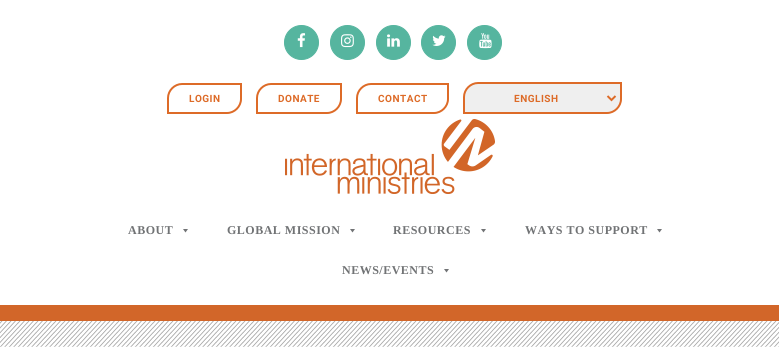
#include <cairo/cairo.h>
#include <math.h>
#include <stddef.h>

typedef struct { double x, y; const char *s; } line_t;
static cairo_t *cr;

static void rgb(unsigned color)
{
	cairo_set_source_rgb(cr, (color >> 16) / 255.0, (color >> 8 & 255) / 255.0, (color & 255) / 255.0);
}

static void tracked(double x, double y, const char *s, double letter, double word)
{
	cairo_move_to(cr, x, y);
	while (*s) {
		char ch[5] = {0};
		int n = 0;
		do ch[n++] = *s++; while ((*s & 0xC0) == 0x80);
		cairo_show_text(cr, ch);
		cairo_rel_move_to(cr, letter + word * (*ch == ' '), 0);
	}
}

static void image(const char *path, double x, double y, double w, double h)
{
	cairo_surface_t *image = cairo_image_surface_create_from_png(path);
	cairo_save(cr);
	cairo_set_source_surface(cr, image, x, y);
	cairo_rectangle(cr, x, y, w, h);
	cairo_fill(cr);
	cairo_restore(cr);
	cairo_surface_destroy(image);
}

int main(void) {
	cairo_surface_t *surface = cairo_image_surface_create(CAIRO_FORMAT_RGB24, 779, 354);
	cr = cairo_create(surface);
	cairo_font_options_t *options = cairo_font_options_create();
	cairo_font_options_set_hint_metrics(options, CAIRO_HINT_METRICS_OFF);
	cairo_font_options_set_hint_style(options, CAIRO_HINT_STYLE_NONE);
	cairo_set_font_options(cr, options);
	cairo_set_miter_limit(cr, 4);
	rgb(0xffffff);
	cairo_paint(cr);
	rgb(0x56b59f);
	cairo_arc(cr, 301.5, 42.5, 17, 0, 2 * M_PI);
	cairo_fill_preserve(cr);
	cairo_set_line_width(cr, 1);
	cairo_stroke(cr);
	image("img/1.png", 297, 33, 9, 15);
	cairo_arc(cr, 347.5, 42.5, 17, 0, 2 * M_PI);
	cairo_fill_preserve(cr);
	cairo_stroke(cr);
	image("img/2.png", 341, 34, 13, 14);
	cairo_arc(cr, 393.5, 42.5, 17, 0, 2 * M_PI);
	cairo_fill_preserve(cr);
	cairo_stroke(cr);
	image("img/3.png", 387, 34, 13, 13);
	cairo_arc(cr, 438.5, 42.5, 17, 0, 2 * M_PI);
	cairo_fill_preserve(cr);
	cairo_stroke(cr);
	image("img/4.png", 432, 35, 14, 11);
	cairo_arc(cr, 484.5, 42.5, 17, 0, 2 * M_PI);
	cairo_fill_preserve(cr);
	cairo_stroke(cr);
	image("img/5.png", 479, 33, 13, 16);
	cairo_new_path(cr);
	cairo_move_to(cr, 182, 84);
	cairo_line_to(cr, 241, 84);
	cairo_line_to(cr, 241, 99);
	cairo_curve_to(cr, 241, 106.5, 234.5, 113, 227, 113);
	cairo_line_to(cr, 168, 113);
	cairo_line_to(cr, 168, 98);
	cairo_curve_to(cr, 168, 90.5, 174.5, 84, 182, 84);
	cairo_close_path(cr);
	rgb(0xdd6b28);
	cairo_set_line_width(cr, 2);
	cairo_stroke(cr);
	cairo_new_path(cr);
	cairo_move_to(cr, 271, 84);
	cairo_line_to(cr, 341, 84);
	cairo_line_to(cr, 341, 99);
	cairo_curve_to(cr, 341, 106.5, 334.5, 113, 327, 113);
	cairo_line_to(cr, 257, 113);
	cairo_line_to(cr, 257, 98);
	cairo_curve_to(cr, 257, 90.5, 263.5, 84, 271, 84);
	cairo_close_path(cr);
	cairo_stroke(cr);
	cairo_new_path(cr);
	cairo_move_to(cr, 371, 84);
	cairo_line_to(cr, 448, 84);
	cairo_line_to(cr, 448, 99);
	cairo_curve_to(cr, 448, 106.5, 441.5, 113, 434, 113);
	cairo_line_to(cr, 357, 113);
	cairo_line_to(cr, 357, 98);
	cairo_curve_to(cr, 357, 90.5, 363.5, 84, 371, 84);
	cairo_close_path(cr);
	cairo_stroke(cr);
	rgb(0xefefef);
	cairo_new_path(cr);
	cairo_move_to(cr, 478, 83);
	cairo_line_to(cr, 621, 83);
	cairo_line_to(cr, 621, 99);
	cairo_curve_to(cr, 621, 106.5, 614.5, 113, 607, 113);
	cairo_line_to(cr, 464, 113);
	cairo_line_to(cr, 464, 97);
	cairo_curve_to(cr, 464, 89.5, 470.5, 83, 478, 83);
	cairo_close_path(cr);
	cairo_fill_preserve(cr);
	rgb(0xdd6b28);
	cairo_stroke(cr);
	cairo_new_path(cr);
	cairo_move_to(cr, 607.5, 96);
	cairo_line_to(cr, 611.5, 100);
	cairo_line_to(cr, 615.5, 96);
	cairo_stroke(cr);
	image("img/6.png", 285, 119, 210, 75);
	rgb(0x717375);
	cairo_new_path(cr);
	cairo_move_to(cr, 188, 229);
	cairo_line_to(cr, 185.5, 232.5);
	cairo_line_to(cr, 183, 229);
	cairo_close_path(cr);
	cairo_fill(cr);
	cairo_new_path(cr);
	cairo_move_to(cr, 355, 229);
	cairo_line_to(cr, 352.5, 232.5);
	cairo_line_to(cr, 350, 229);
	cairo_close_path(cr);
	cairo_fill(cr);
	cairo_new_path(cr);
	cairo_move_to(cr, 486, 229);
	cairo_line_to(cr, 483.5, 232.5);
	cairo_line_to(cr, 481, 229);
	cairo_close_path(cr);
	cairo_fill(cr);
	cairo_new_path(cr);
	cairo_move_to(cr, 662, 229);
	cairo_line_to(cr, 659.5, 232.5);
	cairo_line_to(cr, 657, 229);
	cairo_close_path(cr);
	cairo_fill(cr);
	cairo_new_path(cr);
	cairo_move_to(cr, 449, 269);
	cairo_line_to(cr, 446.5, 272.5);
	cairo_line_to(cr, 444, 269);
	cairo_close_path(cr);
	cairo_fill(cr);
	rgb(0xd26629);
	cairo_rectangle(cr, 0, 305, 779, 16);
	cairo_fill(cr);
	image("img/7.png", 0, 321, 779, 26);
	cairo_select_font_face(cr, "Roboto", CAIRO_FONT_SLANT_NORMAL, CAIRO_FONT_WEIGHT_BOLD);
	cairo_set_font_size(cr, 10);
	rgb(0xdd6b28);
	{
		static const line_t items[] = {
			{189, 102, "LOGIN"},
			{278, 102, "DONATE"},
			{378, 102, "CONTACT"},
			{514, 102, "ENGLISH"},
		};
		for (size_t i = 0; i < sizeof items / sizeof *items; i++) {
			tracked(items[i].x, items[i].y, items[i].s, 0.5, 0);
		}
	}
	cairo_select_font_face(cr, "Liberation Serif", CAIRO_FONT_SLANT_NORMAL, CAIRO_FONT_WEIGHT_BOLD);
	cairo_set_font_size(cr, 12);
	rgb(0x717375);
	{
		static const line_t items[] = {
			{128, 234, "ABOUT"},
			{227, 234, "GLOBAL MISSION"},
			{393, 234, "RESOURCES"},
			{525, 234, "WAYS TO SUPPORT"},
			{342, 274, "NEWS/EVENTS"},
		};
		for (size_t i = 0; i < sizeof items / sizeof *items; i++) {
			tracked(items[i].x, items[i].y, items[i].s, 0.5, 0);
		}
	}
	cairo_surface_write_to_png(surface, "page.png");
	cairo_font_options_destroy(options);
	cairo_destroy(cr);
	cairo_surface_destroy(surface);
	return 0;
}
